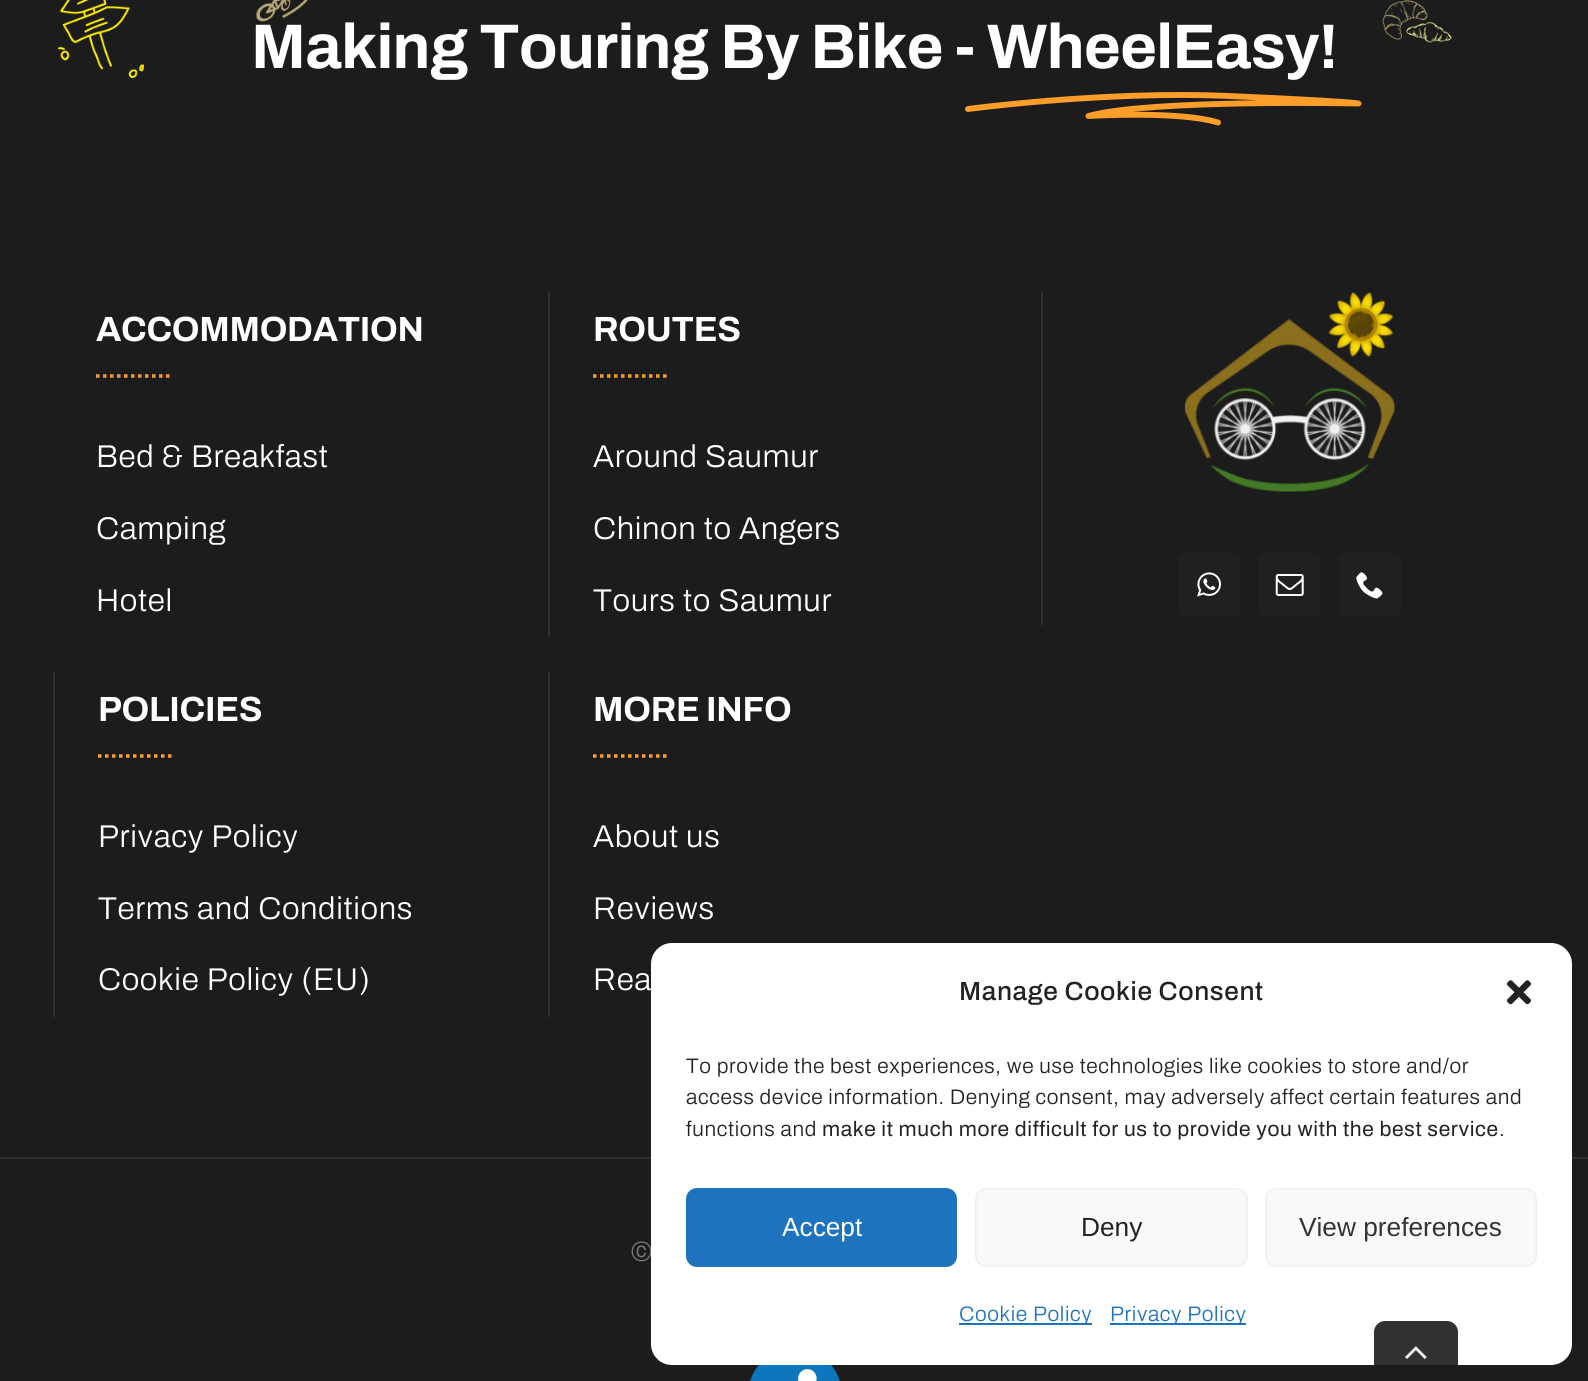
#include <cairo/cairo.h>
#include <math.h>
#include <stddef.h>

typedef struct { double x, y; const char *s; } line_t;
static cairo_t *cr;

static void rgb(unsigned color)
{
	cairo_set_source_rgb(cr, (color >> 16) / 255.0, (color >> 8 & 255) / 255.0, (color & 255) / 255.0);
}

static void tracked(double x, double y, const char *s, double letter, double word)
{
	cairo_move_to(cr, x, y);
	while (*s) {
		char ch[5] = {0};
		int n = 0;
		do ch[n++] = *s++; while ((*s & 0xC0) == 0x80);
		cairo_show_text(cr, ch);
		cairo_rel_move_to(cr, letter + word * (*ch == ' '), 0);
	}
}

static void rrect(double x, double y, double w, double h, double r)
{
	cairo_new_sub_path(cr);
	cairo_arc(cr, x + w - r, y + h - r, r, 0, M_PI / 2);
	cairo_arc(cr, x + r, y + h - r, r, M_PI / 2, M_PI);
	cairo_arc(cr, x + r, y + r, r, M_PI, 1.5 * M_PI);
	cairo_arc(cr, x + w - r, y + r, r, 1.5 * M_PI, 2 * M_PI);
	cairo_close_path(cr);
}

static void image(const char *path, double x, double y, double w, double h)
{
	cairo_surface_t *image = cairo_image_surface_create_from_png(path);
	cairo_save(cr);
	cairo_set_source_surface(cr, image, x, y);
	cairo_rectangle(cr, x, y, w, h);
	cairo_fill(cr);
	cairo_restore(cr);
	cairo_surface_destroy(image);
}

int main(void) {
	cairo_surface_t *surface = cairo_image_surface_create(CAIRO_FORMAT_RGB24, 1588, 1381);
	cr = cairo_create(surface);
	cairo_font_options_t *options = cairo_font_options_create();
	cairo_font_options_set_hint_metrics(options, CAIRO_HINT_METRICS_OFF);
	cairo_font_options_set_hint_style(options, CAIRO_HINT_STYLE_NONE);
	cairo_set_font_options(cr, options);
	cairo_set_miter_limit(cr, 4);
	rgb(0x1c1c1c);
	cairo_paint(cr);
	image("img/1.png", 58, 0, 1394, 78);
	cairo_new_path(cr);
	cairo_move_to(cr, 968, 109);
	cairo_curve_to(cr, 968, 109, 1106, 90.5, 1229, 96);
	cairo_curve_to(cr, 1352.5, 101.5, 1358.5, 103.5, 1358.5, 103.5);
	cairo_curve_to(cr, 1358.5, 103.5, 1149.5, 99, 1088.5, 116);
	cairo_curve_to(cr, 1088.5, 116, 1179, 110.5, 1218, 122.5);
	rgb(0xfd9d2a);
	cairo_set_line_width(cr, 5.9);
	cairo_set_line_cap(cr, CAIRO_LINE_CAP_ROUND);
	cairo_set_line_join(cr, CAIRO_LINE_JOIN_ROUND);
	cairo_stroke(cr);
	cairo_new_path(cr);
	cairo_move_to(cr, 96, 376);
	cairo_line_to(cr, 170, 376);
	cairo_set_line_width(cr, 3.5);
	cairo_set_line_cap(cr, CAIRO_LINE_CAP_BUTT);
	cairo_set_line_join(cr, CAIRO_LINE_JOIN_MITER);
	cairo_set_dash(cr, (double[]){3.5, 3.5}, 2, 0);
	cairo_stroke(cr);
	rgb(0x303030);
	cairo_rectangle(cr, 548, 292, 2, 345);
	cairo_fill(cr);
	cairo_new_path(cr);
	cairo_move_to(cr, 593, 376);
	cairo_line_to(cr, 667, 376);
	rgb(0xfd9d2a);
	cairo_stroke(cr);
	rgb(0x303030);
	cairo_rectangle(cr, 1041, 292, 2, 333);
	cairo_fill(cr);
	image("img/2.png", 1184, 292, 211, 200);
	rgb(0x202020);
	rrect(1178, 553, 63, 63, 7);
	cairo_fill(cr);
	image("img/3.png", 1197, 572, 24, 25);
	rrect(1258, 553, 63, 63, 7);
	cairo_fill(cr);
	image("img/4.png", 1275, 574, 29, 22);
	rrect(1339, 553, 63, 63, 7);
	cairo_fill(cr);
	image("img/5.png", 1356, 572, 27, 27);
	rgb(0x303030);
	cairo_rectangle(cr, 53, 672, 2, 345);
	cairo_fill(cr);
	cairo_new_path(cr);
	cairo_move_to(cr, 98, 756);
	cairo_line_to(cr, 171.5, 756);
	rgb(0xfd9d2a);
	cairo_stroke(cr);
	rgb(0x303030);
	cairo_rectangle(cr, 548, 672, 2, 345);
	cairo_fill(cr);
	cairo_new_path(cr);
	cairo_move_to(cr, 593, 756);
	cairo_line_to(cr, 667, 756);
	rgb(0xfd9d2a);
	cairo_stroke(cr);
	rgb(0x303030);
	cairo_rectangle(cr, 0, 1157, 1588, 2);
	cairo_fill(cr);
	rgb(0x0e76bc);
	rrect(747, 1347, 96, 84, 48);
	cairo_fill_preserve(cr);
	rgb(0x1c1c1c);
	cairo_set_line_width(cr, 2);
	cairo_set_dash(cr, NULL, 0, 0);
	cairo_stroke(cr);
	image("img/6.png", 797, 1369, 20, 12);
	cairo_select_font_face(cr, "Archivo", CAIRO_FONT_SLANT_NORMAL, CAIRO_FONT_WEIGHT_BOLD);
	cairo_set_font_size(cr, 63);
	rgb(0xffffff);
	tracked(251, 68, "Making Touring By Bike - WheelEasy!", -0.65, 0);
	cairo_set_font_size(cr, 35);
	tracked(96, 341, "ACCOMMODATION", -0.3, 0);
	cairo_select_font_face(cr, "Archivo Light", CAIRO_FONT_SLANT_NORMAL, CAIRO_FONT_WEIGHT_NORMAL);
	cairo_set_font_size(cr, 31.5);
	{
		static const line_t items[] = {
			{96, 467, "Bed & Breakfast"},
			{96, 539, "Camping"},
			{96, 611, "Hotel"},
		};
		for (size_t i = 0; i < sizeof items / sizeof *items; i++) {
			tracked(items[i].x, items[i].y, items[i].s, 0.63, 0);
		}
	}
	cairo_select_font_face(cr, "Archivo", CAIRO_FONT_SLANT_NORMAL, CAIRO_FONT_WEIGHT_BOLD);
	cairo_set_font_size(cr, 35);
	tracked(593, 341, "ROUTES", -0.3, 0);
	cairo_select_font_face(cr, "Archivo Light", CAIRO_FONT_SLANT_NORMAL, CAIRO_FONT_WEIGHT_NORMAL);
	cairo_set_font_size(cr, 31.5);
	{
		static const line_t items[] = {
			{593, 467, "Around Saumur"},
			{593, 539, "Chinon to Angers"},
			{593, 611, "Tours to Saumur"},
		};
		for (size_t i = 0; i < sizeof items / sizeof *items; i++) {
			tracked(items[i].x, items[i].y, items[i].s, 0.63, 0);
		}
	}
	cairo_select_font_face(cr, "Archivo", CAIRO_FONT_SLANT_NORMAL, CAIRO_FONT_WEIGHT_BOLD);
	cairo_set_font_size(cr, 35);
	tracked(98, 721, "POLICIES", -0.3, 0);
	cairo_select_font_face(cr, "Archivo Light", CAIRO_FONT_SLANT_NORMAL, CAIRO_FONT_WEIGHT_NORMAL);
	cairo_set_font_size(cr, 31.5);
	{
		static const line_t items[] = {
			{98, 847, "Privacy Policy"},
			{98, 919, "Terms and Conditions"},
			{98, 990, "Cookie Policy (EU)"},
		};
		for (size_t i = 0; i < sizeof items / sizeof *items; i++) {
			tracked(items[i].x, items[i].y, items[i].s, 0.63, 0);
		}
	}
	cairo_select_font_face(cr, "Archivo", CAIRO_FONT_SLANT_NORMAL, CAIRO_FONT_WEIGHT_BOLD);
	cairo_set_font_size(cr, 35);
	tracked(593, 721, "MORE INFO", -0.3, 0);
	cairo_select_font_face(cr, "Archivo Light", CAIRO_FONT_SLANT_NORMAL, CAIRO_FONT_WEIGHT_NORMAL);
	cairo_set_font_size(cr, 31.5);
	{
		static const line_t items[] = {
			{593, 847, "About us"},
			{593, 919, "Reviews"},
			{593, 990, "Rea"},
		};
		for (size_t i = 0; i < sizeof items / sizeof *items; i++) {
			tracked(items[i].x, items[i].y, items[i].s, 0.63, 0);
		}
	}
	cairo_select_font_face(cr, "Archivo", CAIRO_FONT_SLANT_NORMAL, CAIRO_FONT_WEIGHT_NORMAL);
	cairo_set_font_size(cr, 28);
	rgb(0x787878);
	cairo_move_to(cr, 631, 1261);
	cairo_show_text(cr, "©");
	rgb(0xffffff);
	rrect(651, 943, 921, 422, 21);
	cairo_fill(cr);
	cairo_select_font_face(cr, "Archivo Medium", CAIRO_FONT_SLANT_NORMAL, CAIRO_FONT_WEIGHT_NORMAL);
	cairo_set_font_size(cr, 26.25);
	rgb(0x222222);
	tracked(959, 1000, "Manage Cookie Consent", 0.63, 0);
	image("img/7.png", 1507, 980, 24, 25);
	cairo_select_font_face(cr, "Archivo Light", CAIRO_FONT_SLANT_NORMAL, CAIRO_FONT_WEIGHT_NORMAL);
	cairo_set_font_size(cr, 21);
	{
		static const line_t items[] = {
			{686, 1073, "To provide the best experiences, we use technologies like cookies to store and/or"},
			{686, 1104, "access device information. Denying consent, may adversely affect certain features and"},
			{686, 1136, "functions and"},
		};
		for (size_t i = 0; i < sizeof items / sizeof *items; i++) {
			tracked(items[i].x, items[i].y, items[i].s, 0.63, 0);
		}
	}
	cairo_select_font_face(cr, "Archivo", CAIRO_FONT_SLANT_NORMAL, CAIRO_FONT_WEIGHT_NORMAL);
	tracked(822, 1136, "make it much more difficult for us to provide you with the best service", 0.63, 0);
	cairo_select_font_face(cr, "Archivo Light", CAIRO_FONT_SLANT_NORMAL, CAIRO_FONT_WEIGHT_NORMAL);
	tracked(1499, 1136, ".", 0.63, 0);
	rgb(0x1e73be);
	rrect(687, 1189, 269, 77, 10);
	cairo_fill_preserve(cr);
	cairo_stroke(cr);
	cairo_select_font_face(cr, "Liberation Sans", CAIRO_FONT_SLANT_NORMAL, CAIRO_FONT_WEIGHT_NORMAL);
	cairo_set_font_size(cr, 26.25);
	rgb(0xffffff);
	cairo_move_to(cr, 782, 1236);
	cairo_show_text(cr, "Accept");
	rgb(0xf9f9f9);
	rrect(976, 1189, 271, 77, 10);
	cairo_fill_preserve(cr);
	rgb(0xf2f2f2);
	cairo_stroke(cr);
	rgb(0x222222);
	cairo_move_to(cr, 1081, 1236);
	cairo_show_text(cr, "Deny");
	rgb(0xf9f9f9);
	rrect(1266, 1189, 270, 77, 10);
	cairo_fill_preserve(cr);
	rgb(0xf2f2f2);
	cairo_stroke(cr);
	rgb(0x333333);
	cairo_move_to(cr, 1299, 1236);
	cairo_show_text(cr, "View preferences");
	rgb(0x1e73be);
	cairo_rectangle(cr, 959, 1323, 133, 2);
	cairo_fill(cr);
	cairo_select_font_face(cr, "Archivo Light", CAIRO_FONT_SLANT_NORMAL, CAIRO_FONT_WEIGHT_NORMAL);
	cairo_set_font_size(cr, 21);
	tracked(959, 1321, "Cookie Policy", 0.63, 0);
	cairo_rectangle(cr, 1110, 1323, 136, 2);
	cairo_fill(cr);
	tracked(1110, 1321, "Privacy Policy", 0.63, 0);
	cairo_set_source_rgba(cr, 0.11, 0.11, 0.11, 0.9);
	cairo_new_path(cr);
	cairo_move_to(cr, 1385, 1321);
	cairo_line_to(cr, 1447, 1321);
	cairo_curve_to(cr, 1453, 1321, 1458, 1326, 1458, 1332);
	cairo_line_to(cr, 1458, 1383);
	cairo_line_to(cr, 1374, 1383);
	cairo_line_to(cr, 1374, 1332);
	cairo_curve_to(cr, 1374, 1326, 1379, 1321, 1385, 1321);
	cairo_close_path(cr);
	cairo_fill(cr);
	image("img/8.png", 1405, 1346, 22, 13);
	cairo_surface_write_to_png(surface, "page.png");
	cairo_font_options_destroy(options);
	cairo_destroy(cr);
	cairo_surface_destroy(surface);
	return 0;
}
